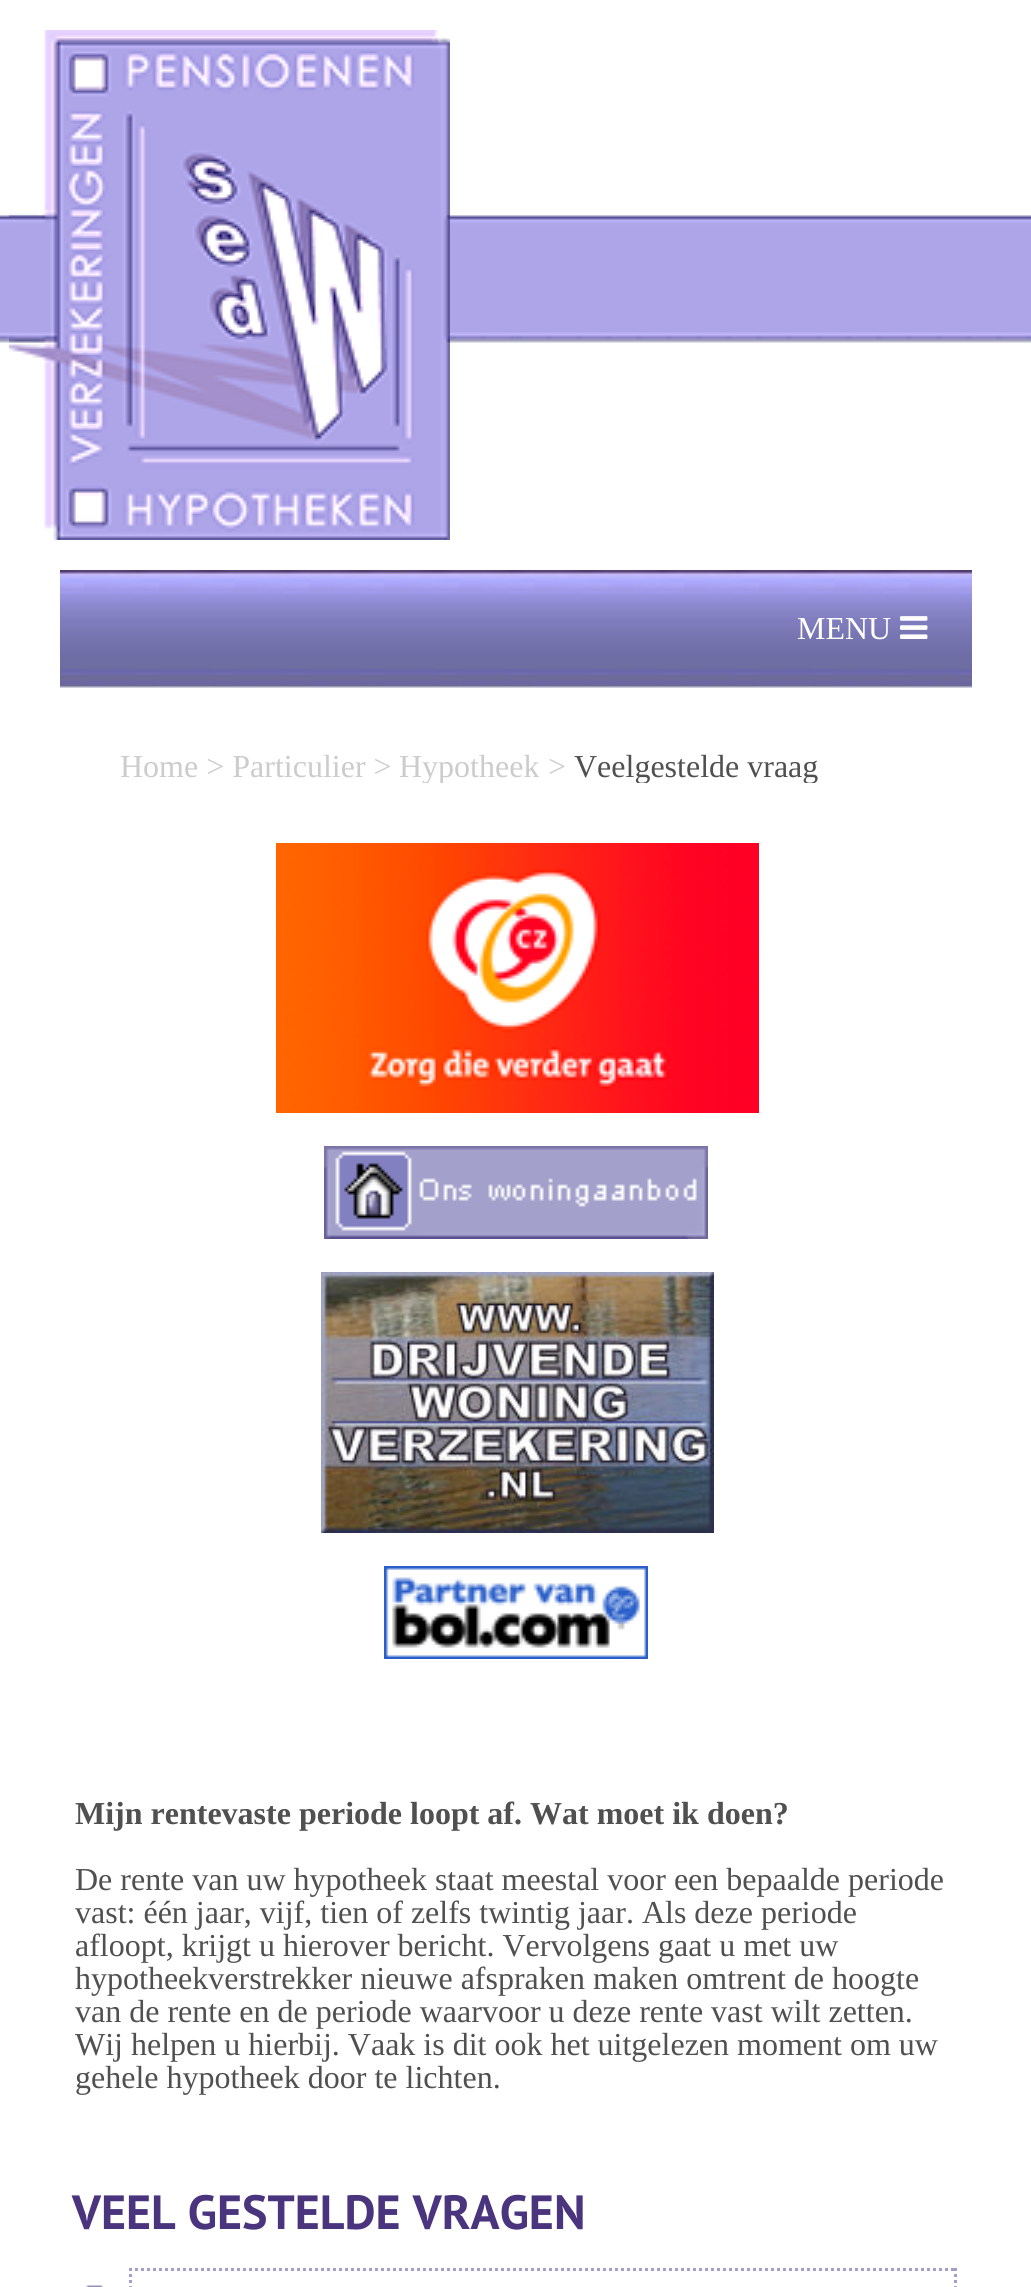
#include <cairo/cairo.h>
#include <math.h>
#include <stddef.h>

typedef struct { double x, y; const char *s; } line_t;
static cairo_t *cr;

static void rgb(unsigned color)
{
	cairo_set_source_rgb(cr, (color >> 16) / 255.0, (color >> 8 & 255) / 255.0, (color & 255) / 255.0);
}

static void image(const char *path, double x, double y, double w, double h)
{
	cairo_surface_t *image = cairo_image_surface_create_from_png(path);
	cairo_save(cr);
	cairo_set_source_surface(cr, image, x, y);
	cairo_rectangle(cr, x, y, w, h);
	cairo_fill(cr);
	cairo_restore(cr);
	cairo_surface_destroy(image);
}

int main(void) {
	cairo_surface_t *surface = cairo_image_surface_create(CAIRO_FORMAT_RGB24, 1031, 2287);
	cr = cairo_create(surface);
	cairo_font_options_t *options = cairo_font_options_create();
	cairo_font_options_set_hint_metrics(options, CAIRO_HINT_METRICS_OFF);
	cairo_font_options_set_hint_style(options, CAIRO_HINT_STYLE_NONE);
	cairo_set_font_options(cr, options);
	cairo_set_miter_limit(cr, 4);
	rgb(0xffffff);
	cairo_paint(cr);
	image("img/1.png", 0, 215, 516, 128);
	image("img/2.png", 516, 215, 515, 128);
	image("img/3.png", 9, 30, 441, 510);
	image("img/4.png", 60, 570, 912, 118);
	image("img/5.png", 900, 616, 28, 23);
	image("img/6.png", 276, 843, 483, 270);
	image("img/7.png", 324, 1146, 384, 93);
	image("img/8.png", 321, 1272, 393, 261);
	image("img/9.png", 384, 1566, 264, 93);
	cairo_new_path(cr);
	cairo_move_to(cr, 129, 2269.5);
	cairo_line_to(cr, 957, 2269.5);
	rgb(0xa69dca);
	cairo_set_line_width(cr, 3);
	cairo_set_dash(cr, (double[]){3, 3}, 2, 0);
	cairo_stroke(cr);
	cairo_new_path(cr);
	cairo_move_to(cr, 955.5, 2268);
	cairo_line_to(cr, 955.5, 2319);
	cairo_stroke(cr);
	cairo_new_path(cr);
	cairo_move_to(cr, 130.5, 2268);
	cairo_line_to(cr, 130.5, 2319);
	cairo_stroke(cr);
	image("img/10.png", 86, 2285, 17, 2);
	cairo_select_font_face(cr, "Liberation Serif", CAIRO_FONT_SLANT_NORMAL, CAIRO_FONT_WEIGHT_NORMAL);
	cairo_set_font_size(cr, 32);
	rgb(0xffffff);
	cairo_move_to(cr, 797, 639);
	cairo_show_text(cr, "MENU");
	rgb(0xcccccc);
	cairo_move_to(cr, 120, 777);
	cairo_show_text(cr, "Home > Particulier >");
	cairo_save(cr);
	cairo_rectangle(cr, 60, 750, 912, 33);
	cairo_clip(cr);
	cairo_move_to(cr, 399, 777);
	cairo_show_text(cr, "Hypotheek");
	cairo_restore(cr);
	cairo_move_to(cr, 548, 777);
	cairo_show_text(cr, ">");
	cairo_save(cr);
	cairo_rectangle(cr, 60, 750, 912, 33);
	cairo_clip(cr);
	rgb(0x505050);
	cairo_move_to(cr, 574, 777);
	cairo_show_text(cr, "Veelgestelde vraag");
	cairo_restore(cr);
	cairo_select_font_face(cr, "Liberation Serif", CAIRO_FONT_SLANT_NORMAL, CAIRO_FONT_WEIGHT_BOLD);
	rgb(0x505050);
	cairo_move_to(cr, 75, 1824);
	cairo_show_text(cr, "Mijn rentevaste periode loopt af. Wat moet ik doen?");
	cairo_select_font_face(cr, "Liberation Serif", CAIRO_FONT_SLANT_NORMAL, CAIRO_FONT_WEIGHT_NORMAL);
	{
		static const line_t items[] = {
			{75, 1890, "De rente van uw hypotheek staat meestal voor een bepaalde periode"},
			{75, 1923, "vast: één jaar, vijf, tien of zelfs twintig jaar. Als deze periode"},
			{75, 1956, "afloopt, krijgt u hierover bericht. Vervolgens gaat u met uw"},
			{75, 1989, "hypotheekverstrekker nieuwe afspraken maken omtrent de hoogte"},
			{75, 2022, "van de rente en de periode waarvoor u deze rente vast wilt zetten."},
			{75, 2055, "Wij helpen u hierbij. Vaak is dit ook het uitgelezen moment om uw"},
			{75, 2088, "gehele hypotheek door te lichten."},
		};
		for (size_t i = 0; i < sizeof items / sizeof *items; i++) {
			cairo_move_to(cr, items[i].x, items[i].y);
			cairo_show_text(cr, items[i].s);
		}
	}
	cairo_select_font_face(cr, "PT Sans", CAIRO_FONT_SLANT_NORMAL, CAIRO_FONT_WEIGHT_BOLD);
	cairo_set_font_size(cr, 48);
	rgb(0x4b347e);
	cairo_move_to(cr, 72, 2229);
	cairo_show_text(cr, "VEEL GESTELDE VRAGEN");
	cairo_surface_write_to_png(surface, "page.png");
	cairo_font_options_destroy(options);
	cairo_destroy(cr);
	cairo_surface_destroy(surface);
	return 0;
}
